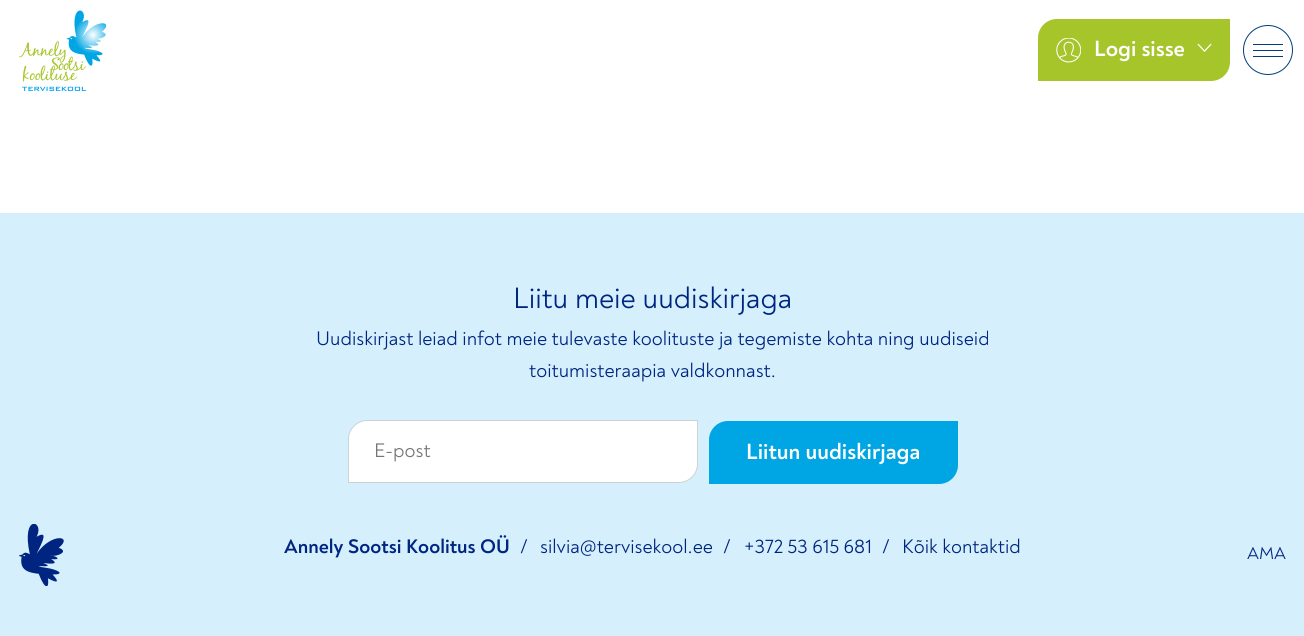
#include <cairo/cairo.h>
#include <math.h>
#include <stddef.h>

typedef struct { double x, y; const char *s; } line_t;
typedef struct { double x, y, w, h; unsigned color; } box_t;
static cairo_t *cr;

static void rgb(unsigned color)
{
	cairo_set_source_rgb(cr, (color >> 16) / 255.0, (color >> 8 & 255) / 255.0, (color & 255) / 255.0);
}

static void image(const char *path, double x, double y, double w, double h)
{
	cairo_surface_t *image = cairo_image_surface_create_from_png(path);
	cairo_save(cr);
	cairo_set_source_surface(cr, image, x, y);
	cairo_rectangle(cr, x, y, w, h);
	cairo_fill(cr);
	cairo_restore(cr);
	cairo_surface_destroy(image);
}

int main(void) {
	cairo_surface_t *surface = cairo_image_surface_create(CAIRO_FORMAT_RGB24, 1304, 636);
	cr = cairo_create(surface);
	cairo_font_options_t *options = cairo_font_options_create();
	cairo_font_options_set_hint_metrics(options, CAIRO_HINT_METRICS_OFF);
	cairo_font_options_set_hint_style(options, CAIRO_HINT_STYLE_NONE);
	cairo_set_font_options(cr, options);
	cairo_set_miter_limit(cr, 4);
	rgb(0xffffff);
	cairo_paint(cr);
	image("img/1.png", 19, 10, 87, 81);
	rgb(0xa6c52a);
	cairo_new_path(cr);
	cairo_move_to(cr, 1057, 19);
	cairo_line_to(cr, 1230, 19);
	cairo_line_to(cr, 1230, 62);
	cairo_curve_to(cr, 1230, 72.5, 1221.5, 81, 1211, 81);
	cairo_line_to(cr, 1038, 81);
	cairo_line_to(cr, 1038, 38);
	cairo_curve_to(cr, 1038, 27.5, 1046.5, 19, 1057, 19);
	cairo_close_path(cr);
	cairo_fill(cr);
	image("img/2.png", 1056, 38, 25, 25);
	image("img/3.png", 1197, 43, 15, 9);
	cairo_arc(cr, 1268, 50, 24.5, 0, 2 * M_PI);
	rgb(0x003e7e);
	cairo_set_line_width(cr, 1);
	cairo_stroke(cr);
	{
		static const box_t items[] = {
			{1253, 44, 30, 1, 0x003e7e},
			{1253, 50, 30, 1, 0x003e7e},
			{1253, 56, 30, 1, 0x003e7e},
			{0, 213, 1304, 423, 0xd5f0fc},
		};
		for (size_t i = 0; i < sizeof items / sizeof *items; i++) {
			rgb(items[i].color);
			cairo_rectangle(cr, items[i].x, items[i].y, items[i].w, items[i].h);
			cairo_fill(cr);
		}
	}
	rgb(0xffffff);
	cairo_new_path(cr);
	cairo_move_to(cr, 367, 420.5);
	cairo_line_to(cr, 697.5, 420.5);
	cairo_line_to(cr, 697.5, 464);
	cairo_curve_to(cr, 697.5, 474, 689, 482.5, 679, 482.5);
	cairo_line_to(cr, 348.5, 482.5);
	cairo_line_to(cr, 348.5, 439);
	cairo_curve_to(cr, 348.5, 429, 357, 420.5, 367, 420.5);
	cairo_close_path(cr);
	cairo_fill_preserve(cr);
	rgb(0xcdd2d2);
	cairo_stroke(cr);
	rgb(0x00a5e3);
	cairo_new_path(cr);
	cairo_move_to(cr, 728, 421);
	cairo_line_to(cr, 958, 421);
	cairo_line_to(cr, 958, 465);
	cairo_curve_to(cr, 958, 475.5, 949.5, 484, 939, 484);
	cairo_line_to(cr, 709, 484);
	cairo_line_to(cr, 709, 440);
	cairo_curve_to(cr, 709, 429.5, 717.5, 421, 728, 421);
	cairo_close_path(cr);
	cairo_fill(cr);
	image("img/4.png", 19, 524, 45, 62);
	cairo_select_font_face(cr, "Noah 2", CAIRO_FONT_SLANT_NORMAL, CAIRO_FONT_WEIGHT_NORMAL);
	cairo_set_font_size(cr, 22.5);
	rgb(0xffffff);
	cairo_move_to(cr, 1094, 56);
	cairo_show_text(cr, "Logi sisse");
	cairo_select_font_face(cr, "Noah", CAIRO_FONT_SLANT_NORMAL, CAIRO_FONT_WEIGHT_NORMAL);
	cairo_set_font_size(cr, 30);
	rgb(0x002581);
	cairo_move_to(cr, 513, 308);
	cairo_show_text(cr, "Liitu meie uudiskirjaga");
	cairo_set_font_size(cr, 20);
	cairo_move_to(cr, 316, 345);
	cairo_show_text(cr, "Uudiskirjast leiad infot meie tulevaste koolituste ja tegemiste kohta ning uudiseid");
	cairo_move_to(cr, 529, 377);
	cairo_show_text(cr, "toitumisteraapia valdkonnast.");
	rgb(0x757575);
	cairo_move_to(cr, 374, 457);
	cairo_show_text(cr, "E-post");
	cairo_select_font_face(cr, "Noah 2", CAIRO_FONT_SLANT_NORMAL, CAIRO_FONT_WEIGHT_NORMAL);
	cairo_set_font_size(cr, 22.5);
	rgb(0xffffff);
	cairo_move_to(cr, 746, 459);
	cairo_show_text(cr, "Liitun uudiskirjaga");
	cairo_set_font_size(cr, 20);
	rgb(0x002581);
	cairo_move_to(cr, 284, 553);
	cairo_show_text(cr, "Annely Sootsi Koolitus OÜ");
	cairo_select_font_face(cr, "Noah", CAIRO_FONT_SLANT_NORMAL, CAIRO_FONT_WEIGHT_NORMAL);
	{
		static const line_t items[] = {
			{520, 553, "/"},
			{540, 553, "silvia@tervisekool.ee"},
			{723, 553, "/"},
			{744, 553, "+372 53 615 681"},
			{882, 553, "/"},
			{902, 553, "Kõik kontaktid"},
		};
		for (size_t i = 0; i < sizeof items / sizeof *items; i++) {
			cairo_move_to(cr, items[i].x, items[i].y);
			cairo_show_text(cr, items[i].s);
		}
	}
	cairo_set_font_size(cr, 17.5);
	cairo_move_to(cr, 1247, 559);
	cairo_show_text(cr, "AMA");
	cairo_surface_write_to_png(surface, "page.png");
	cairo_font_options_destroy(options);
	cairo_destroy(cr);
	cairo_surface_destroy(surface);
	return 0;
}
